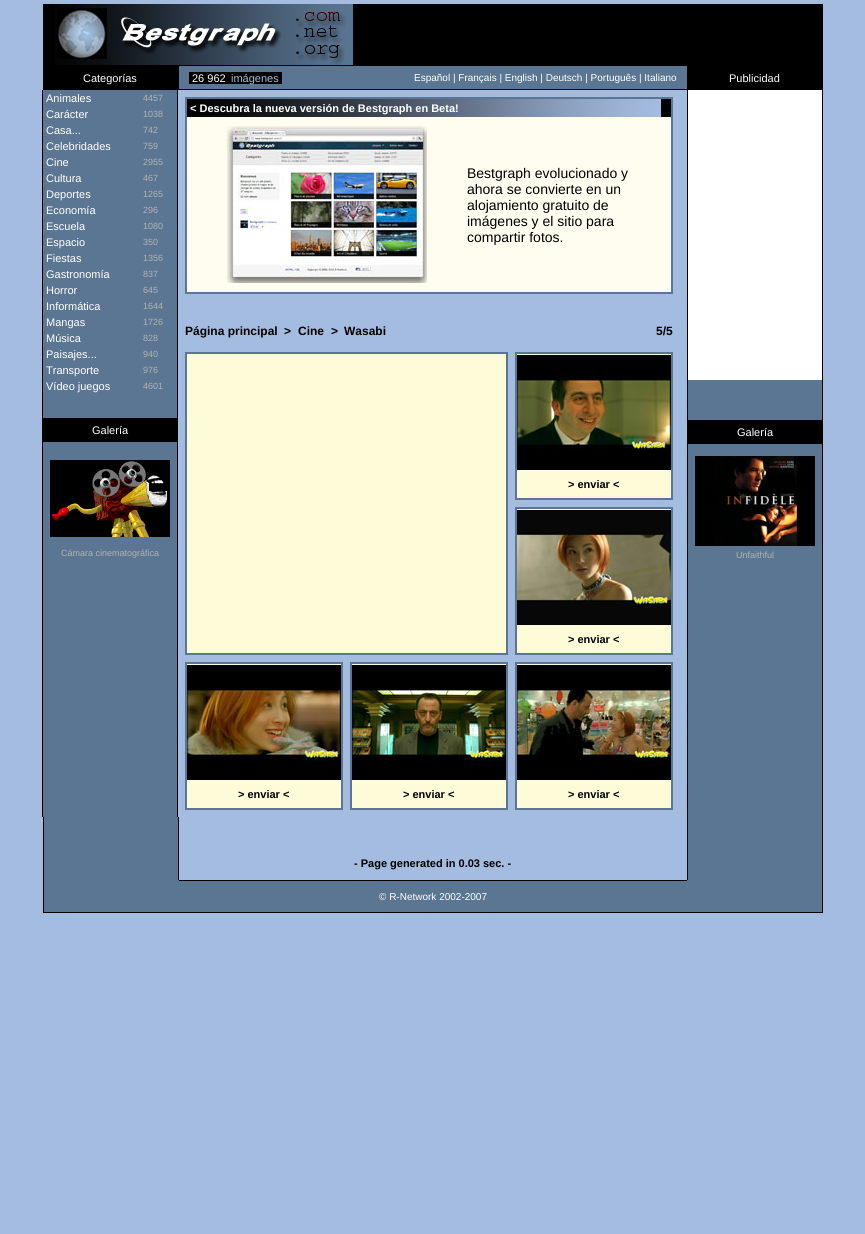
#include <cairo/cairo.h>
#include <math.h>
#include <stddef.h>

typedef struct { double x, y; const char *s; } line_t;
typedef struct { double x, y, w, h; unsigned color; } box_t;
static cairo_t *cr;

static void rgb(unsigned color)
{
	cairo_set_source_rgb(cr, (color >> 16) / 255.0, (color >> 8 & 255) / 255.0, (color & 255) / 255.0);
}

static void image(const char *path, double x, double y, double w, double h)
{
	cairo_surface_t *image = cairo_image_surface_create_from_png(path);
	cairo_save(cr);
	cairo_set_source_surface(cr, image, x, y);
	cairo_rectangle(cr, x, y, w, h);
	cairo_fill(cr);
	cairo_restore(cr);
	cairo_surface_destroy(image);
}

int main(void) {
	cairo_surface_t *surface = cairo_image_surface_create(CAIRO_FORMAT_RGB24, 865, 1234);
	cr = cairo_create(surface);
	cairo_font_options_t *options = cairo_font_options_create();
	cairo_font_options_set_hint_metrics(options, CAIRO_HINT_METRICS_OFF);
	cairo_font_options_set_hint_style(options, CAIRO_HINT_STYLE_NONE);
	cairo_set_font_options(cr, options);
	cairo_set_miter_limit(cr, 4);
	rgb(0xa4bce0);
	cairo_paint(cr);
	rgb(0x000000);
	cairo_rectangle(cr, 43, 4, 780, 62);
	cairo_fill(cr);
	image("img/1.png", 55, 4, 298, 61);
	{
		static const box_t items[] = {
			{179, 66, 508, 23, 0x5b7693},
			{43, 66, 136, 24, 0x000000},
			{189, 72, 93, 12, 0x000000},
			{687, 66, 136, 24, 0x000000},
			{179, 89, 508, 1, 0x000000},
			{43, 90, 779, 727, 0x5b7693},
			{177, 90, 1, 727, 0x000000},
			{42, 90, 1, 727, 0x000000},
			{43, 418, 134, 24, 0x000000},
		};
		for (size_t i = 0; i < sizeof items / sizeof *items; i++) {
			rgb(items[i].color);
			cairo_rectangle(cr, items[i].x, items[i].y, items[i].w, items[i].h);
			cairo_fill(cr);
		}
	}
	image("img/2.png", 50, 460, 120, 77);
	rgb(0xa4bce0);
	cairo_rectangle(cr, 178, 90, 509, 727);
	cairo_fill(cr);
	rgb(0xfefdef);
	cairo_rectangle(cr, 187, 117, 484, 175);
	cairo_fill(cr);
	cairo_rectangle(cr, 186, 98, 486, 195);
	rgb(0x5b7693);
	cairo_stroke(cr);
	image("img/3.png", 187, 99, 484, 18);
	image("img/4.png", 227, 126, 200, 157);
	rgb(0xfefbd9);
	cairo_rectangle(cr, 186, 353, 321, 301);
	cairo_fill_preserve(cr);
	rgb(0x5b7693);
	cairo_stroke(cr);
	rgb(0xfefbd9);
	cairo_rectangle(cr, 516, 353, 156, 146);
	cairo_fill_preserve(cr);
	rgb(0x5b7693);
	cairo_stroke(cr);
	image("img/5.png", 517, 355, 154, 115);
	rgb(0xfefbd9);
	cairo_rectangle(cr, 516, 508, 156, 146);
	cairo_fill_preserve(cr);
	rgb(0x5b7693);
	cairo_stroke(cr);
	image("img/6.png", 517, 510, 154, 115);
	rgb(0xfefbd9);
	cairo_rectangle(cr, 186, 663, 156, 146);
	cairo_fill_preserve(cr);
	rgb(0x5b7693);
	cairo_stroke(cr);
	image("img/7.png", 187, 665, 154, 115);
	rgb(0xfefbd9);
	cairo_rectangle(cr, 351, 663, 156, 146);
	cairo_fill_preserve(cr);
	rgb(0x5b7693);
	cairo_stroke(cr);
	image("img/8.png", 352, 665, 154, 115);
	rgb(0xfefbd9);
	cairo_rectangle(cr, 516, 663, 156, 146);
	cairo_fill_preserve(cr);
	rgb(0x5b7693);
	cairo_stroke(cr);
	image("img/9.png", 517, 665, 154, 115);
	{
		static const box_t items[] = {
			{822, 90, 1, 823, 0x000000},
			{687, 90, 1, 727, 0x000000},
			{688, 90, 134, 290, 0xffffff},
			{688, 420, 134, 24, 0x000000},
		};
		for (size_t i = 0; i < sizeof items / sizeof *items; i++) {
			rgb(items[i].color);
			cairo_rectangle(cr, items[i].x, items[i].y, items[i].w, items[i].h);
			cairo_fill(cr);
		}
	}
	image("img/10.png", 695, 456, 120, 90);
	{
		static const box_t items[] = {
			{44, 817, 778, 95, 0x5b7693},
			{178, 817, 1, 63, 0x000000},
			{43, 817, 1, 63, 0x000000},
			{179, 817, 508, 63, 0xa4bce0},
			{687, 817, 1, 63, 0x000000},
			{43, 912, 780, 1, 0x000000},
			{43, 880, 1, 33, 0x000000},
			{179, 880, 508, 1, 0x000000},
		};
		for (size_t i = 0; i < sizeof items / sizeof *items; i++) {
			rgb(items[i].color);
			cairo_rectangle(cr, items[i].x, items[i].y, items[i].w, items[i].h);
			cairo_fill(cr);
		}
	}
	cairo_select_font_face(cr, "Liberation Sans", CAIRO_FONT_SLANT_NORMAL, CAIRO_FONT_WEIGHT_NORMAL);
	cairo_set_font_size(cr, 11);
	rgb(0xffffff);
	cairo_move_to(cr, 83, 82);
	cairo_show_text(cr, "Categorías");
	cairo_move_to(cr, 192, 82);
	cairo_show_text(cr, "26 962");
	rgb(0xa4bce0);
	cairo_move_to(cr, 231, 82);
	cairo_show_text(cr, "imágenes");
	cairo_set_font_size(cr, 10);
	rgb(0xffffff);
	cairo_move_to(cr, 414, 81);
	cairo_show_text(cr, "Español | Français | English | Deutsch | Português | Italiano");
	cairo_set_font_size(cr, 11);
	cairo_move_to(cr, 729, 82);
	cairo_show_text(cr, "Publicidad");
	cairo_move_to(cr, 46, 102);
	cairo_show_text(cr, "Animales");
	cairo_set_font_size(cr, 9);
	rgb(0xb2b2b2);
	cairo_move_to(cr, 143, 101);
	cairo_show_text(cr, "4457");
	cairo_set_font_size(cr, 11);
	rgb(0xffffff);
	cairo_move_to(cr, 46, 118);
	cairo_show_text(cr, "Carácter");
	cairo_set_font_size(cr, 9);
	rgb(0xb2b2b2);
	cairo_move_to(cr, 143, 117);
	cairo_show_text(cr, "1038");
	cairo_set_font_size(cr, 11);
	rgb(0xffffff);
	cairo_move_to(cr, 46, 134);
	cairo_show_text(cr, "Casa...");
	cairo_set_font_size(cr, 9);
	rgb(0xb2b2b2);
	cairo_move_to(cr, 143, 133);
	cairo_show_text(cr, "742");
	cairo_set_font_size(cr, 11);
	rgb(0xffffff);
	cairo_move_to(cr, 46, 150);
	cairo_show_text(cr, "Celebridades");
	cairo_set_font_size(cr, 9);
	rgb(0xb2b2b2);
	cairo_move_to(cr, 143, 149);
	cairo_show_text(cr, "759");
	cairo_set_font_size(cr, 11);
	rgb(0xffffff);
	cairo_move_to(cr, 46, 166);
	cairo_show_text(cr, "Cine");
	cairo_set_font_size(cr, 9);
	rgb(0xb2b2b2);
	cairo_move_to(cr, 143, 165);
	cairo_show_text(cr, "2955");
	cairo_set_font_size(cr, 11);
	rgb(0xffffff);
	cairo_move_to(cr, 46, 182);
	cairo_show_text(cr, "Cultura");
	cairo_set_font_size(cr, 9);
	rgb(0xb2b2b2);
	cairo_move_to(cr, 143, 181);
	cairo_show_text(cr, "467");
	cairo_set_font_size(cr, 11);
	rgb(0xffffff);
	cairo_move_to(cr, 46, 198);
	cairo_show_text(cr, "Deportes");
	cairo_set_font_size(cr, 9);
	rgb(0xb2b2b2);
	cairo_move_to(cr, 143, 197);
	cairo_show_text(cr, "1265");
	cairo_set_font_size(cr, 11);
	rgb(0xffffff);
	cairo_move_to(cr, 46, 214);
	cairo_show_text(cr, "Economía");
	cairo_set_font_size(cr, 9);
	rgb(0xb2b2b2);
	cairo_move_to(cr, 143, 213);
	cairo_show_text(cr, "296");
	cairo_set_font_size(cr, 11);
	rgb(0xffffff);
	cairo_move_to(cr, 46, 230);
	cairo_show_text(cr, "Escuela");
	cairo_set_font_size(cr, 9);
	rgb(0xb2b2b2);
	cairo_move_to(cr, 143, 229);
	cairo_show_text(cr, "1080");
	cairo_set_font_size(cr, 11);
	rgb(0xffffff);
	cairo_move_to(cr, 46, 246);
	cairo_show_text(cr, "Espacio");
	cairo_set_font_size(cr, 9);
	rgb(0xb2b2b2);
	cairo_move_to(cr, 143, 245);
	cairo_show_text(cr, "350");
	cairo_set_font_size(cr, 11);
	rgb(0xffffff);
	cairo_move_to(cr, 46, 262);
	cairo_show_text(cr, "Fiestas");
	cairo_set_font_size(cr, 9);
	rgb(0xb2b2b2);
	cairo_move_to(cr, 143, 261);
	cairo_show_text(cr, "1356");
	cairo_set_font_size(cr, 11);
	rgb(0xffffff);
	cairo_move_to(cr, 46, 278);
	cairo_show_text(cr, "Gastronomía");
	cairo_set_font_size(cr, 9);
	rgb(0xb2b2b2);
	cairo_move_to(cr, 143, 277);
	cairo_show_text(cr, "837");
	cairo_set_font_size(cr, 11);
	rgb(0xffffff);
	cairo_move_to(cr, 46, 294);
	cairo_show_text(cr, "Horror");
	cairo_set_font_size(cr, 9);
	rgb(0xb2b2b2);
	cairo_move_to(cr, 143, 293);
	cairo_show_text(cr, "645");
	cairo_set_font_size(cr, 11);
	rgb(0xffffff);
	cairo_move_to(cr, 46, 310);
	cairo_show_text(cr, "Informática");
	cairo_set_font_size(cr, 9);
	rgb(0xb2b2b2);
	cairo_move_to(cr, 143, 309);
	cairo_show_text(cr, "1644");
	cairo_set_font_size(cr, 11);
	rgb(0xffffff);
	cairo_move_to(cr, 46, 326);
	cairo_show_text(cr, "Mangas");
	cairo_set_font_size(cr, 9);
	rgb(0xb2b2b2);
	cairo_move_to(cr, 143, 325);
	cairo_show_text(cr, "1726");
	cairo_set_font_size(cr, 11);
	rgb(0xffffff);
	cairo_move_to(cr, 46, 342);
	cairo_show_text(cr, "Música");
	cairo_set_font_size(cr, 9);
	rgb(0xb2b2b2);
	cairo_move_to(cr, 143, 341);
	cairo_show_text(cr, "828");
	cairo_set_font_size(cr, 11);
	rgb(0xffffff);
	cairo_move_to(cr, 46, 358);
	cairo_show_text(cr, "Paisajes...");
	cairo_set_font_size(cr, 9);
	rgb(0xb2b2b2);
	cairo_move_to(cr, 143, 357);
	cairo_show_text(cr, "940");
	cairo_set_font_size(cr, 11);
	rgb(0xffffff);
	cairo_move_to(cr, 46, 374);
	cairo_show_text(cr, "Transporte");
	cairo_set_font_size(cr, 9);
	rgb(0xb2b2b2);
	cairo_move_to(cr, 143, 373);
	cairo_show_text(cr, "976");
	cairo_set_font_size(cr, 11);
	rgb(0xffffff);
	cairo_move_to(cr, 46, 390);
	cairo_show_text(cr, "Vídeo juegos");
	cairo_set_font_size(cr, 9);
	rgb(0xb2b2b2);
	cairo_move_to(cr, 143, 389);
	cairo_show_text(cr, "4601");
	cairo_set_font_size(cr, 11);
	rgb(0xffffff);
	cairo_move_to(cr, 92, 434);
	cairo_show_text(cr, "Galería");
	cairo_set_font_size(cr, 9);
	rgb(0xb2b2b2);
	cairo_move_to(cr, 61, 556);
	cairo_show_text(cr, "Cámara cinematográfica");
	cairo_select_font_face(cr, "Liberation Sans", CAIRO_FONT_SLANT_NORMAL, CAIRO_FONT_WEIGHT_BOLD);
	cairo_set_font_size(cr, 11);
	rgb(0xffffff);
	cairo_move_to(cr, 190, 112);
	cairo_show_text(cr, "< Descubra la nueva versión de Bestgraph en Beta!");
	cairo_select_font_face(cr, "Liberation Sans", CAIRO_FONT_SLANT_NORMAL, CAIRO_FONT_WEIGHT_NORMAL);
	cairo_set_font_size(cr, 14);
	rgb(0x000000);
	{
		static const line_t items[] = {
			{467, 178, "Bestgraph evolucionado y"},
			{467, 194, "ahora se convierte en un"},
			{467, 210, "alojamiento gratuito de"},
			{467, 226, "imágenes y el sitio para"},
			{467, 242, "compartir fotos."},
		};
		for (size_t i = 0; i < sizeof items / sizeof *items; i++) {
			cairo_move_to(cr, items[i].x, items[i].y);
			cairo_show_text(cr, items[i].s);
		}
	}
	cairo_select_font_face(cr, "Liberation Sans", CAIRO_FONT_SLANT_NORMAL, CAIRO_FONT_WEIGHT_BOLD);
	cairo_set_font_size(cr, 12);
	{
		static const line_t items[] = {
			{185, 335, "Página principal"},
			{284, 335, ">"},
			{298, 335, "Cine"},
			{331, 335, ">"},
			{344, 335, "Wasabi"},
			{656, 335, "5/5"},
		};
		for (size_t i = 0; i < sizeof items / sizeof *items; i++) {
			cairo_move_to(cr, items[i].x, items[i].y);
			cairo_show_text(cr, items[i].s);
		}
	}
	cairo_set_font_size(cr, 11);
	{
		static const line_t items[] = {
			{568, 488, "> enviar <"},
			{568, 643, "> enviar <"},
			{238, 798, "> enviar <"},
			{403, 798, "> enviar <"},
			{568, 798, "> enviar <"},
		};
		for (size_t i = 0; i < sizeof items / sizeof *items; i++) {
			cairo_move_to(cr, items[i].x, items[i].y);
			cairo_show_text(cr, items[i].s);
		}
	}
	cairo_select_font_face(cr, "Liberation Sans", CAIRO_FONT_SLANT_NORMAL, CAIRO_FONT_WEIGHT_NORMAL);
	rgb(0xffffff);
	cairo_move_to(cr, 737, 436);
	cairo_show_text(cr, "Galería");
	cairo_set_font_size(cr, 9);
	rgb(0xb2b2b2);
	cairo_move_to(cr, 736, 558);
	cairo_show_text(cr, "Unfaithful");
	cairo_select_font_face(cr, "Liberation Sans", CAIRO_FONT_SLANT_NORMAL, CAIRO_FONT_WEIGHT_BOLD);
	cairo_set_font_size(cr, 11);
	rgb(0x000000);
	cairo_move_to(cr, 354, 867);
	cairo_show_text(cr, "- Page generated in 0.03 sec. -");
	cairo_select_font_face(cr, "Liberation Sans", CAIRO_FONT_SLANT_NORMAL, CAIRO_FONT_WEIGHT_NORMAL);
	cairo_set_font_size(cr, 10);
	rgb(0xffffff);
	cairo_move_to(cr, 379, 900);
	cairo_show_text(cr, "© R-Network 2002-2007");
	cairo_surface_write_to_png(surface, "page.png");
	cairo_font_options_destroy(options);
	cairo_destroy(cr);
	cairo_surface_destroy(surface);
	return 0;
}
